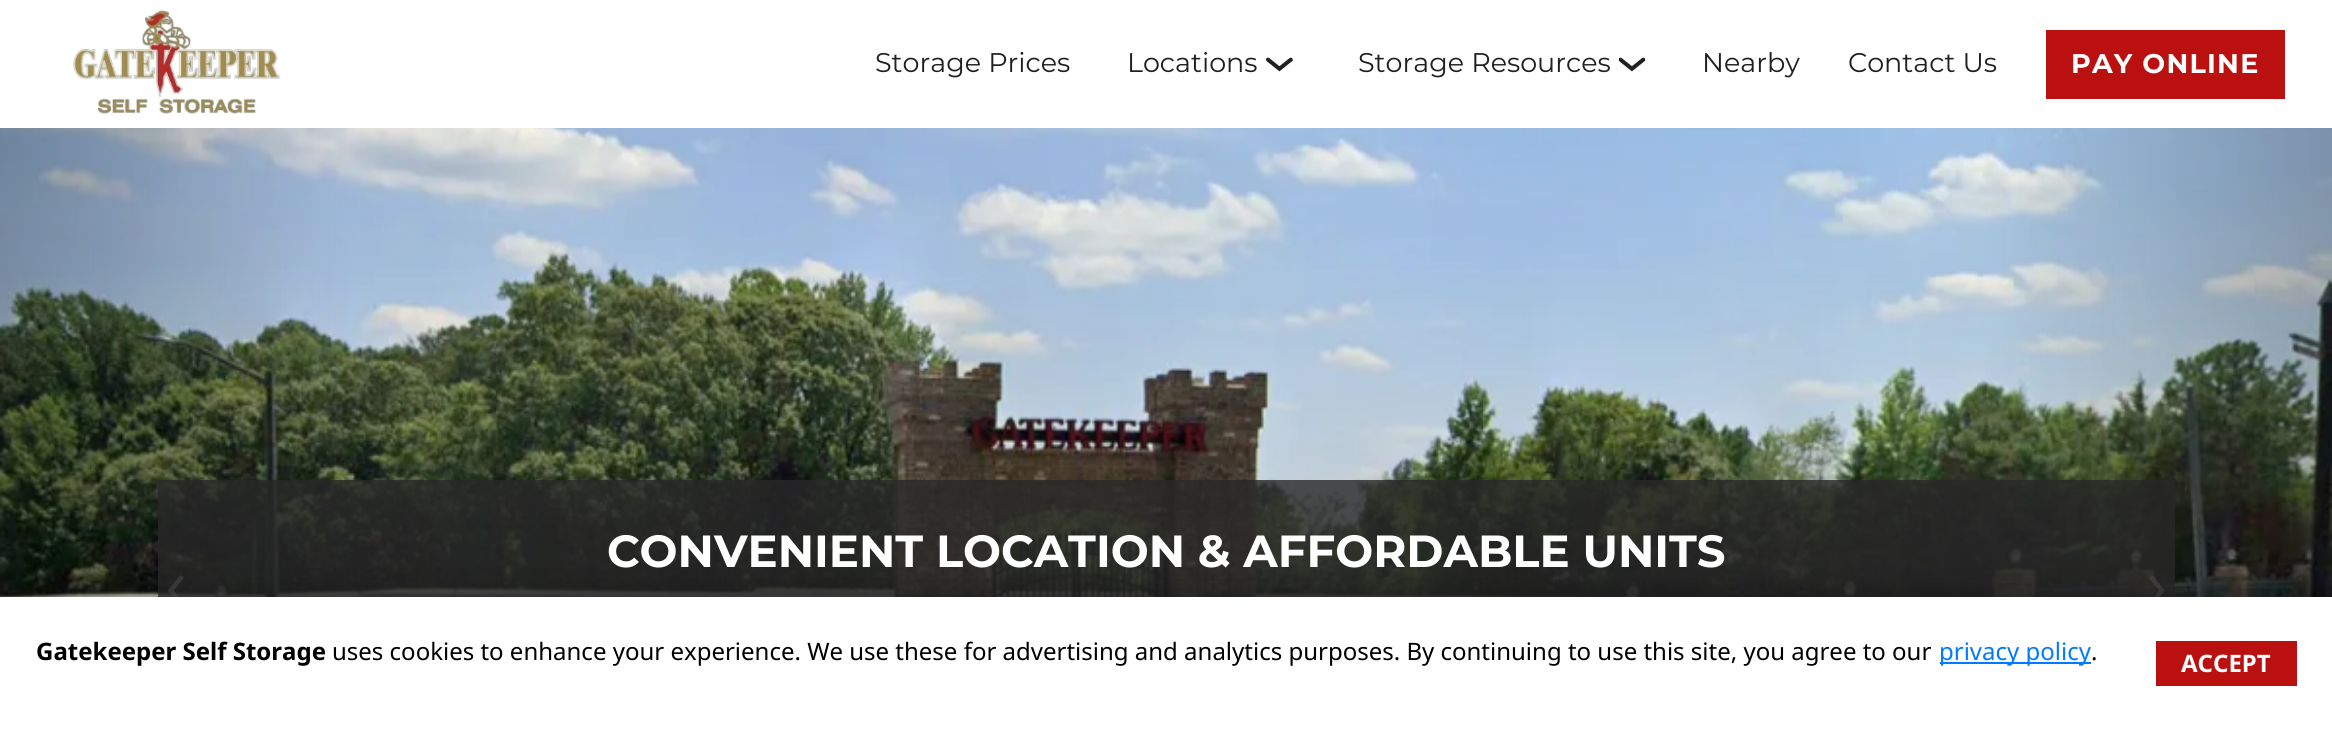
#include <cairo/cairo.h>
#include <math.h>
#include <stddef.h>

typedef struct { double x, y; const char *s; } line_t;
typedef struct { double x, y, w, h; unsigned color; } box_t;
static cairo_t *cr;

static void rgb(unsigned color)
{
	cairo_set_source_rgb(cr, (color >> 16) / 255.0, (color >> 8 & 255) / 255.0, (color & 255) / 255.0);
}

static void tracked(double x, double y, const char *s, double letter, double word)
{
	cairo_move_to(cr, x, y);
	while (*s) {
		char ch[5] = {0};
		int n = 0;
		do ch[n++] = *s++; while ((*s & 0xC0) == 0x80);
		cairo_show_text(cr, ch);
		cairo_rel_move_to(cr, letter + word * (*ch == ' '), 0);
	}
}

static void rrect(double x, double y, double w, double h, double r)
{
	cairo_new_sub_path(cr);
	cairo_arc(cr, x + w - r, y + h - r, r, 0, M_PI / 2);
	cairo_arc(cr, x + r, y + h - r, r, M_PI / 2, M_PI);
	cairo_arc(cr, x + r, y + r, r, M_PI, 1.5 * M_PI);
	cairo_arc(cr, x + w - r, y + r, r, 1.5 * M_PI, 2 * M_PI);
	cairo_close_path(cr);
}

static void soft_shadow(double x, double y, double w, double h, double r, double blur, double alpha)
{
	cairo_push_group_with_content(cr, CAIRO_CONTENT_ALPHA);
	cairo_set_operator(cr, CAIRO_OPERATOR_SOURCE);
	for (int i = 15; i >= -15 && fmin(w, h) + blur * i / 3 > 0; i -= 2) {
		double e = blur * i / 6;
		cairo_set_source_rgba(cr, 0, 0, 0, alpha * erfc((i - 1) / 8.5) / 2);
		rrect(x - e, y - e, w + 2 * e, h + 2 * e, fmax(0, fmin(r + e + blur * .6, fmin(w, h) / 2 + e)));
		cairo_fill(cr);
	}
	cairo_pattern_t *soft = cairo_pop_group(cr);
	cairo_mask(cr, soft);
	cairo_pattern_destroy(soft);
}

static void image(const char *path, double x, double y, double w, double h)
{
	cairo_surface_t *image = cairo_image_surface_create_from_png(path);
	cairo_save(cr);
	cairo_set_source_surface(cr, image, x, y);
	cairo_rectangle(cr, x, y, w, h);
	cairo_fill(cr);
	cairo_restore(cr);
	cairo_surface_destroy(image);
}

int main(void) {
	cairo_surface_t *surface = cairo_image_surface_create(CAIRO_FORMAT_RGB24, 2332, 729);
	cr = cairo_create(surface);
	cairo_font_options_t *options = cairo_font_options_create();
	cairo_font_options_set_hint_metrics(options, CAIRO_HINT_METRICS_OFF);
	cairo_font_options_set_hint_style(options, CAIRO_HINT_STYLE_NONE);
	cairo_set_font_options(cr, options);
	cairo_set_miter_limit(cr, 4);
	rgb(0xffffff);
	cairo_paint(cr);
	image("img/1.png", 73, 10, 208, 104);
	image("img/2.png", 1266, 57, 27, 15);
	image("img/3.png", 1619, 57, 27, 15);
	rgb(0xba1010);
	cairo_rectangle(cr, 2046, 30, 239, 69);
	cairo_fill(cr);
	image("img/4.png", 0, 128, 2332, 469);
	image("img/5.png", 168, 575, 16, 22);
	image("img/6.png", 2149, 575, 16, 22);
	cairo_set_source_rgba(cr, 0.157, 0.157, 0.157, 0.8);
	cairo_rectangle(cr, 158, 480, 2017, 117);
	cairo_fill(cr);
	rgb(0x000000);
	soft_shadow(0, 591, 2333, 132, 0, 15, 0.25);
	{
		static const box_t items[] = {
			{0, 597, 2332, 132, 0xffffff},
			{1940, 662, 151, 2, 0x007bff},
			{2156, 641, 141, 45, 0xba1010},
		};
		for (size_t i = 0; i < sizeof items / sizeof *items; i++) {
			rgb(items[i].color);
			cairo_rectangle(cr, items[i].x, items[i].y, items[i].w, items[i].h);
			cairo_fill(cr);
		}
	}
	cairo_select_font_face(cr, "Montserrat", CAIRO_FONT_SLANT_NORMAL, CAIRO_FONT_WEIGHT_NORMAL);
	cairo_set_font_size(cr, 27);
	rgb(0x202020);
	{
		static const line_t items[] = {
			{875, 72, "Storage Prices"},
			{1127, 72, "Locations"},
			{1358, 72, "Storage Resources"},
			{1702, 72, "Nearby"},
			{1848, 72, "Contact Us"},
		};
		for (size_t i = 0; i < sizeof items / sizeof *items; i++) {
			cairo_move_to(cr, items[i].x, items[i].y);
			cairo_show_text(cr, items[i].s);
		}
	}
	cairo_select_font_face(cr, "Montserrat", CAIRO_FONT_SLANT_NORMAL, CAIRO_FONT_WEIGHT_BOLD);
	rgb(0xffffff);
	tracked(2071, 73, "PAY ONLINE", 1.25, 0);
	cairo_set_font_size(cr, 45);
	cairo_move_to(cr, 607, 567);
	cairo_show_text(cr, "CONVENIENT LOCATION & AFFORDABLE UNITS");
	cairo_select_font_face(cr, "Noto Sans", CAIRO_FONT_SLANT_NORMAL, CAIRO_FONT_WEIGHT_BOLD);
	cairo_set_font_size(cr, 24);
	rgb(0x000000);
	cairo_move_to(cr, 36, 660);
	cairo_show_text(cr, "Gatekeeper Self Storage");
	cairo_select_font_face(cr, "Noto Sans", CAIRO_FONT_SLANT_NORMAL, CAIRO_FONT_WEIGHT_NORMAL);
	cairo_move_to(cr, 332, 660);
	cairo_show_text(cr, "uses cookies to enhance your experience. We use these for advertising and analytics purposes. By continuing to use this site, you agree to our");
	rgb(0x007bff);
	cairo_move_to(cr, 1939, 660);
	cairo_show_text(cr, "privacy policy");
	rgb(0x000000);
	cairo_move_to(cr, 2091, 660);
	cairo_show_text(cr, ".");
	cairo_select_font_face(cr, "Noto Sans", CAIRO_FONT_SLANT_NORMAL, CAIRO_FONT_WEIGHT_BOLD);
	rgb(0xffffff);
	cairo_move_to(cr, 2181, 672);
	cairo_show_text(cr, "ACCEPT");
	cairo_surface_write_to_png(surface, "page.png");
	cairo_font_options_destroy(options);
	cairo_destroy(cr);
	cairo_surface_destroy(surface);
	return 0;
}
